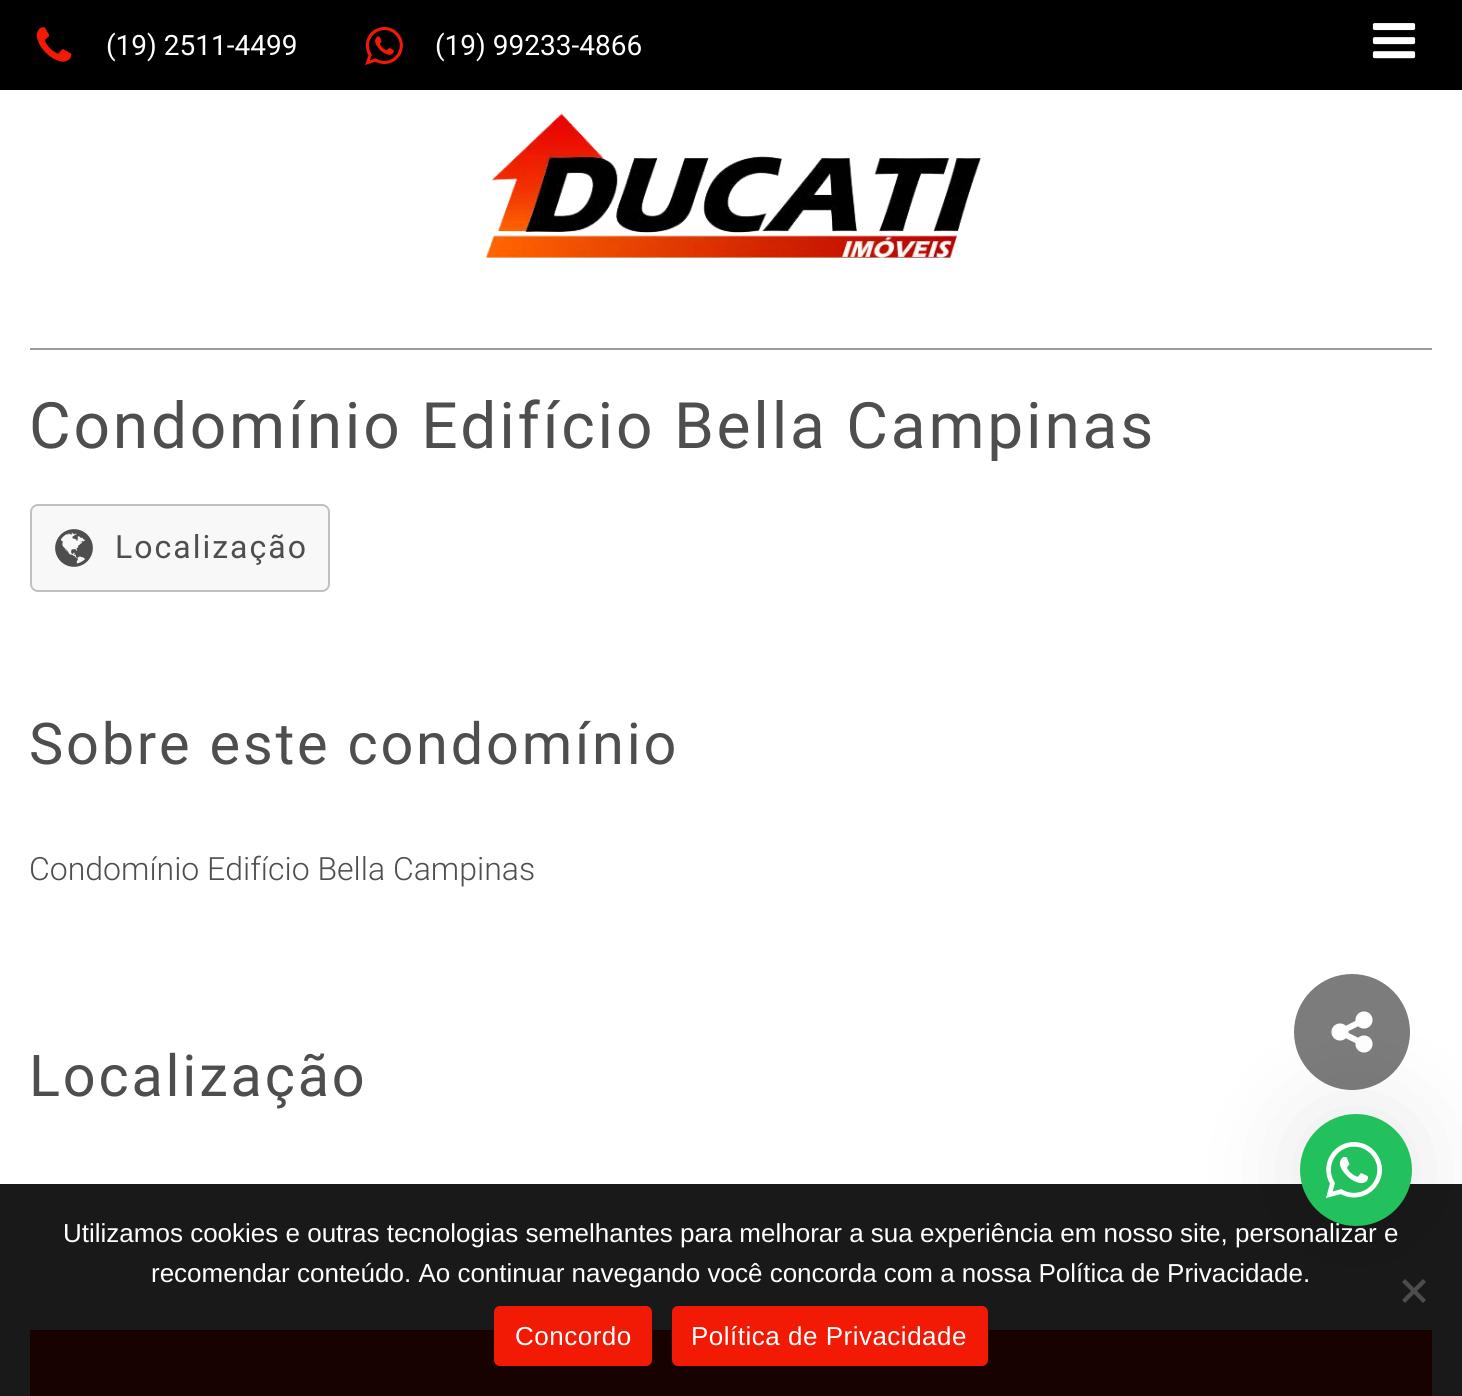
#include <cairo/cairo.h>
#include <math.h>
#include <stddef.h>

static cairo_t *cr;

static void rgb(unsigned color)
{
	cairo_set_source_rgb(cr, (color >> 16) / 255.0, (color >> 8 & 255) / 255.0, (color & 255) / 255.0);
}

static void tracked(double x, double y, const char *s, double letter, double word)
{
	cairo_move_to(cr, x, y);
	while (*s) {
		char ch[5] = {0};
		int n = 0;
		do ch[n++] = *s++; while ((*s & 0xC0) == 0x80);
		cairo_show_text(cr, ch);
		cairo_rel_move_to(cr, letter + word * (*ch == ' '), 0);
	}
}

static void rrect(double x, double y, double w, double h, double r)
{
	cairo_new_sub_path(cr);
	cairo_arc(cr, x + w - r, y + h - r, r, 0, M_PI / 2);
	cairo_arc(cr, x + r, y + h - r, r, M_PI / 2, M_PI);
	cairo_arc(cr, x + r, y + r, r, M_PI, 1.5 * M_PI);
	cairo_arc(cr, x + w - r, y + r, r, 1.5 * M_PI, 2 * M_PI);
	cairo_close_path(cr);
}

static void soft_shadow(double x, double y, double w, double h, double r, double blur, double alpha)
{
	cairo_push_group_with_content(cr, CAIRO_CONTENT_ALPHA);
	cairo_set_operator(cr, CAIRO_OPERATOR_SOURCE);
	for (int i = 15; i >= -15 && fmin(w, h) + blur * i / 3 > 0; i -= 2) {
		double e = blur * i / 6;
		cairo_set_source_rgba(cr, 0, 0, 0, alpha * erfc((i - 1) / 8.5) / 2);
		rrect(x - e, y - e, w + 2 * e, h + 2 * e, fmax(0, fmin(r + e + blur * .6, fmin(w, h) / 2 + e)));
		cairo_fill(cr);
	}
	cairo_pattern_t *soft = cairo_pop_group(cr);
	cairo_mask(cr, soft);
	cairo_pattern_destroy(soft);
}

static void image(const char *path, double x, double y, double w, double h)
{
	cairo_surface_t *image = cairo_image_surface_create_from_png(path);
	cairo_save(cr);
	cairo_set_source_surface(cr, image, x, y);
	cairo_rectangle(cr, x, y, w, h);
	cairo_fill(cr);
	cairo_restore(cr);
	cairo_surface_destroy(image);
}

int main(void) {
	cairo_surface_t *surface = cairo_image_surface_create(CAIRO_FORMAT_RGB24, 1462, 1396);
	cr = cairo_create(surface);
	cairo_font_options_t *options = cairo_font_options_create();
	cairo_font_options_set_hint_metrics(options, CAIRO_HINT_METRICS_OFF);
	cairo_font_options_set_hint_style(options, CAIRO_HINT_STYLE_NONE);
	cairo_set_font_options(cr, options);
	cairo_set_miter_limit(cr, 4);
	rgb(0xffffff);
	cairo_paint(cr);
	rgb(0x191919);
	cairo_rectangle(cr, 0, 1184, 1462, 212);
	cairo_fill(cr);
	rgb(0x000000);
	cairo_rectangle(cr, 0, 0, 1462, 90);
	cairo_fill(cr);
	image("img/1.png", 36, 27, 36, 35);
	image("img/2.png", 365, 27, 38, 38);
	image("img/3.png", 1372, 23, 44, 36);
	image("img/4.png", 485, 113, 497, 145);
	rgb(0x9b9b9b);
	cairo_rectangle(cr, 30, 348, 1402, 2);
	cairo_fill(cr);
	rgb(0xf8f8f8);
	rrect(31, 505, 298, 86, 7);
	cairo_fill_preserve(cr);
	rgb(0xc0c0c0);
	cairo_stroke(cr);
	image("img/5.png", 55, 529, 38, 38);
	rgb(0x180200);
	cairo_rectangle(cr, 30, 1330, 1402, 66);
	cairo_fill(cr);
	rgb(0x7c7c7c);
	cairo_arc(cr, 1352, 1032, 57, 0, 2 * M_PI);
	cairo_fill_preserve(cr);
	cairo_stroke(cr);
	image("img/7.png", 1331, 1011, 42, 42);
	rgb(0x4d4d4d);
	cairo_new_path(cr);
	cairo_move_to(cr, 1423, 1279);
	cairo_line_to(cr, 1426, 1282);
	cairo_line_to(cr, 1405, 1303);
	cairo_line_to(cr, 1402, 1300);
	cairo_close_path(cr);
	cairo_fill(cr);
	cairo_new_path(cr);
	cairo_move_to(cr, 1402, 1282);
	cairo_line_to(cr, 1405, 1279);
	cairo_line_to(cr, 1426, 1300);
	cairo_line_to(cr, 1423, 1303);
	cairo_close_path(cr);
	cairo_fill(cr);
	rgb(0x000000);
	soft_shadow(1300, 1114, 112, 112, 56, 50, 0.1);
	rgb(0xf21905);
	rrect(494, 1306, 158, 60, 6);
	cairo_fill(cr);
	rrect(672, 1306, 316, 60, 6);
	cairo_fill(cr);
	cairo_select_font_face(cr, "Roboto", CAIRO_FONT_SLANT_NORMAL, CAIRO_FONT_WEIGHT_NORMAL);
	cairo_set_font_size(cr, 28);
	rgb(0xffffff);
	cairo_move_to(cr, 106, 55);
	cairo_show_text(cr, "(19) 2511-4499");
	cairo_move_to(cr, 435, 55);
	cairo_show_text(cr, "(19) 99233-4866");
	cairo_set_font_size(cr, 64);
	rgb(0x4e4e4e);
	tracked(29, 448, "Condomínio Edifício Bella Campinas", 2.8, 0);
	cairo_set_font_size(cr, 32);
	tracked(115, 558, "Localização", 2, 0);
	cairo_set_font_size(cr, 57.6);
	tracked(29, 764, "Sobre este condomínio", 2.8, 0);
	cairo_select_font_face(cr, "Roboto Light", CAIRO_FONT_SLANT_NORMAL, CAIRO_FONT_WEIGHT_NORMAL);
	cairo_set_font_size(cr, 32);
	cairo_move_to(cr, 29, 880);
	cairo_show_text(cr, "Condomínio Edifício Bella Campinas");
	cairo_select_font_face(cr, "Roboto", CAIRO_FONT_SLANT_NORMAL, CAIRO_FONT_WEIGHT_NORMAL);
	cairo_set_font_size(cr, 57.6);
	tracked(29, 1096, "Localização", 2.8, 0);
	cairo_select_font_face(cr, "Liberation Sans", CAIRO_FONT_SLANT_NORMAL, CAIRO_FONT_WEIGHT_NORMAL);
	cairo_set_font_size(cr, 26);
	rgb(0xffffff);
	cairo_move_to(cr, 63, 1242);
	cairo_show_text(cr, "Utilizamos cookies e outras tecnologias semelhantes para melhorar a sua experiência em nosso site, personalizar e");
	rgb(0x22c15e);
	cairo_new_path(cr);
	cairo_arc(cr, 1356, 1170, 56, 0, 2 * M_PI);
	cairo_fill(cr);
	image("img/6.png", 1326, 1142, 56, 56);
	rgb(0xffffff);
	cairo_move_to(cr, 151, 1282);
	cairo_show_text(cr, "recomendar conteúdo. Ao continuar navegando você concorda com a nossa Política de Privacidade.");
	tracked(515, 1345, "Concordo", 0.5, 0);
	tracked(691, 1345, "Política de Privacidade", 0.5, 0);
	cairo_surface_write_to_png(surface, "page.png");
	cairo_font_options_destroy(options);
	cairo_destroy(cr);
	cairo_surface_destroy(surface);
	return 0;
}
